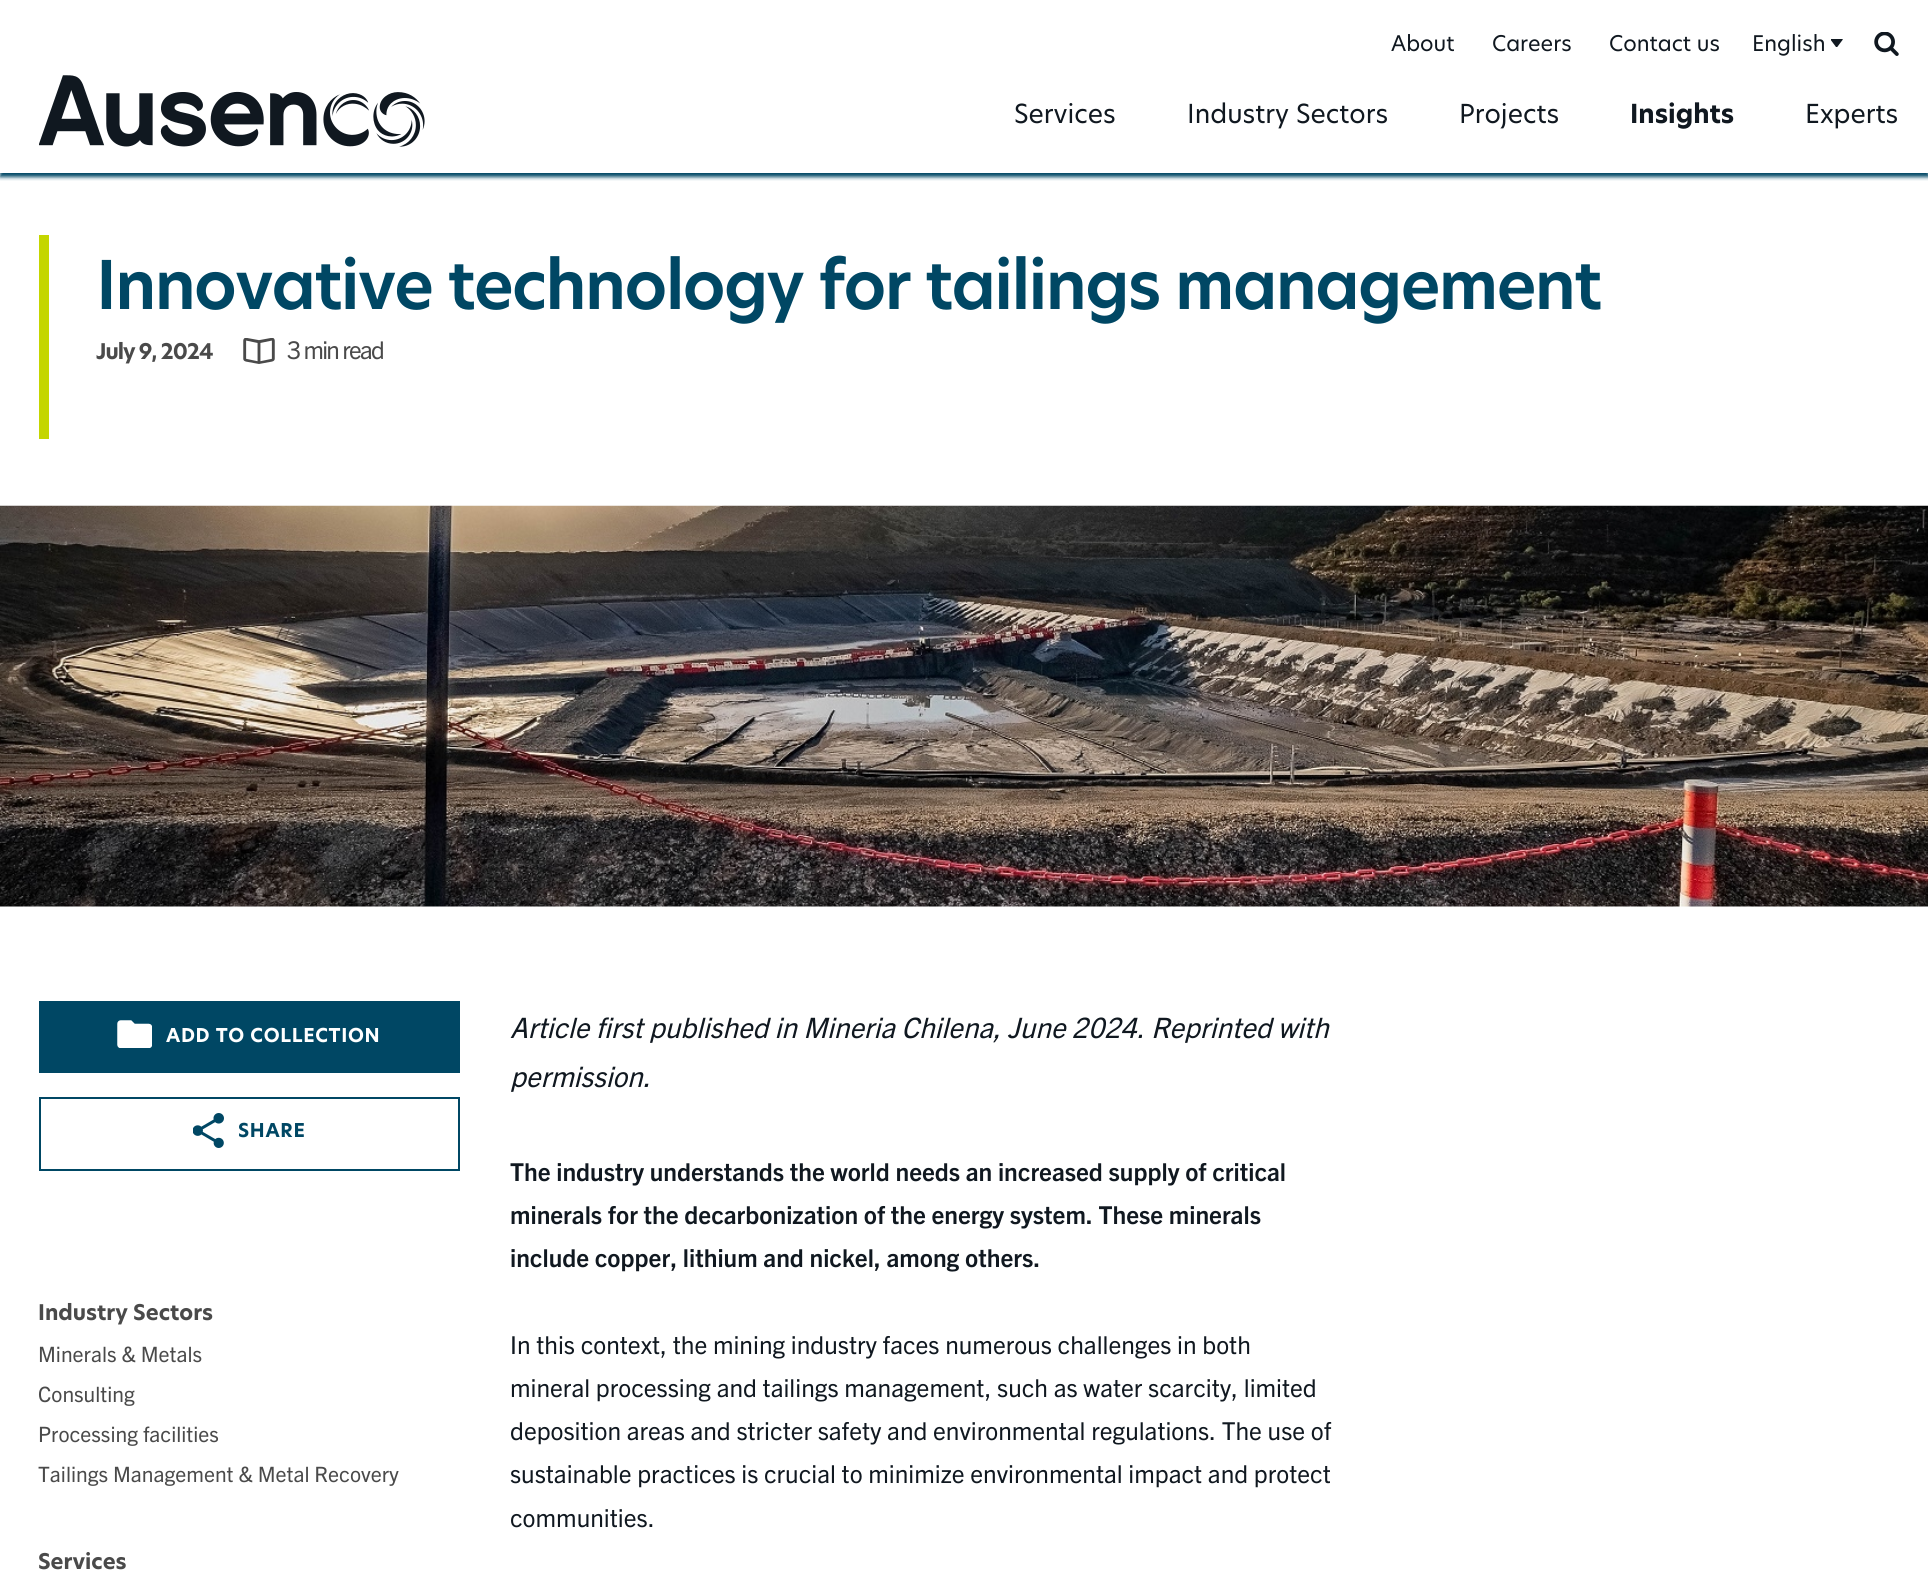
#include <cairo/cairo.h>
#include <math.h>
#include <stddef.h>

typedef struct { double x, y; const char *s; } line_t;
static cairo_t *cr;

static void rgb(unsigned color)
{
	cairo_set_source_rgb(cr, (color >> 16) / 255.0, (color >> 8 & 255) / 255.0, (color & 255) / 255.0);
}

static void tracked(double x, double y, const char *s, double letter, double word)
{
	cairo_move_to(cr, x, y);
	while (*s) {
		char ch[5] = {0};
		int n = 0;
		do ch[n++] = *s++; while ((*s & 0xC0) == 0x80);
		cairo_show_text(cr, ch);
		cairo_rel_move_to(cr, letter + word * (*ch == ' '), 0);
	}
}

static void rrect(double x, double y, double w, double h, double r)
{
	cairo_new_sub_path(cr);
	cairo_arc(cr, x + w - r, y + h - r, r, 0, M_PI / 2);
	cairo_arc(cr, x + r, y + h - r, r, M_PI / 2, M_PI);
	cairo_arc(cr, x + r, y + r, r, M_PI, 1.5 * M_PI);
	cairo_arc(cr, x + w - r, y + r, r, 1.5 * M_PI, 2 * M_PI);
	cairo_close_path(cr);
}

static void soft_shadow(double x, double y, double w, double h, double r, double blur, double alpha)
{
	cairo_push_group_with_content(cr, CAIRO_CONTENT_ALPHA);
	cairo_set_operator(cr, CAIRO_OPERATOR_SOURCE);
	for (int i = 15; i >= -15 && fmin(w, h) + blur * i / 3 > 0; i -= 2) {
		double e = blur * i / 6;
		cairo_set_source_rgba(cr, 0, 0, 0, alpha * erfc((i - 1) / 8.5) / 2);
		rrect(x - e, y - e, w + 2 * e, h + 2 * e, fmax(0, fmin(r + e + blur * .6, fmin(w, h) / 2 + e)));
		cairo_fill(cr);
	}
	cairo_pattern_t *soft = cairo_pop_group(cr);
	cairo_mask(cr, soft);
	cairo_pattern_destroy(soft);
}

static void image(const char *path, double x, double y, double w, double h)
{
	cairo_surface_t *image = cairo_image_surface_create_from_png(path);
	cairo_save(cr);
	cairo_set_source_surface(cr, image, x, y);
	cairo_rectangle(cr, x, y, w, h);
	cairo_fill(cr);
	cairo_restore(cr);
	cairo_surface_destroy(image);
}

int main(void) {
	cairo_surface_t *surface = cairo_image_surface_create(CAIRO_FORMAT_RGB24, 1928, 1573);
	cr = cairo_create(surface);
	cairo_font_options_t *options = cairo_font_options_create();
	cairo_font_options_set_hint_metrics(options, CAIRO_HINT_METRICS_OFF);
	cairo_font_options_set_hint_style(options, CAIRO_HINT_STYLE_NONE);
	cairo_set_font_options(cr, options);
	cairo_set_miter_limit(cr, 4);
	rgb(0xffffff);
	cairo_paint(cr);
	cairo_save(cr);
	cairo_rectangle(cr, 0, 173, 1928, 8);
	cairo_clip(cr);
	rgb(0x004764);
	soft_shadow(0, 4, 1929, 173, 0, 2, 1);
	cairo_restore(cr);
	image("img/1.png", 39, 75, 386, 72);
	image("img/2.png", 1831, 39, 12, 8);
	image("img/3.png", 1874, 32, 25, 24);
	rgb(0xc4d600);
	cairo_rectangle(cr, 39, 235, 10, 204);
	cairo_fill(cr);
	image("img/4.png", 243, 338, 32, 26);
	image("img/5.png", 0, 505, 1928, 402);
	rgb(0x004764);
	cairo_rectangle(cr, 39, 1001, 421, 72);
	cairo_fill(cr);
	image("img/6.png", 117, 1020, 35, 28);
	cairo_rectangle(cr, 40, 1098, 419, 72);
	cairo_stroke(cr);
	image("img/7.png", 193, 1113, 31, 35);
	cairo_select_font_face(cr, "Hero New", CAIRO_FONT_SLANT_NORMAL, CAIRO_FONT_WEIGHT_NORMAL);
	cairo_set_font_size(cr, 21.2);
	rgb(0x101820);
	{
		static const line_t items[] = {
			{1391, 51, "About"},
			{1492, 51, "Careers"},
			{1609, 51, "Contact us"},
			{1752, 51, "English"},
		};
		for (size_t i = 0; i < sizeof items / sizeof *items; i++) {
			cairo_move_to(cr, items[i].x, items[i].y);
			cairo_show_text(cr, items[i].s);
		}
	}
	cairo_set_font_size(cr, 25.75);
	{
		static const line_t items[] = {
			{1014, 123, "Services"},
			{1187, 123, "Industry Sectors"},
			{1459, 123, "Projects"},
		};
		for (size_t i = 0; i < sizeof items / sizeof *items; i++) {
			cairo_move_to(cr, items[i].x, items[i].y);
			cairo_show_text(cr, items[i].s);
		}
	}
	cairo_select_font_face(cr, "Hero New", CAIRO_FONT_SLANT_NORMAL, CAIRO_FONT_WEIGHT_BOLD);
	cairo_move_to(cr, 1630, 123);
	cairo_show_text(cr, "Insights");
	cairo_select_font_face(cr, "Hero New", CAIRO_FONT_SLANT_NORMAL, CAIRO_FONT_WEIGHT_NORMAL);
	cairo_move_to(cr, 1805, 123);
	cairo_show_text(cr, "Experts");
	cairo_select_font_face(cr, "Hero New SemiBold", CAIRO_FONT_SLANT_NORMAL, CAIRO_FONT_WEIGHT_NORMAL);
	cairo_set_font_size(cr, 65.9);
	rgb(0x004764);
	tracked(96, 309, "Innovative technology for tailings management", -1.65, 0);
	cairo_select_font_face(cr, "Hero New", CAIRO_FONT_SLANT_NORMAL, CAIRO_FONT_WEIGHT_BOLD);
	cairo_set_font_size(cr, 21.2);
	rgb(0x4a4a4a);
	tracked(96, 359, "July 9, 2024", -1, 0);
	cairo_select_font_face(cr, "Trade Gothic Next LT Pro", CAIRO_FONT_SLANT_NORMAL, CAIRO_FONT_WEIGHT_NORMAL);
	cairo_set_font_size(cr, 24.5);
	tracked(287, 359, "3 min read", -1.65, 0);
	cairo_select_font_face(cr, "Hero New", CAIRO_FONT_SLANT_NORMAL, CAIRO_FONT_WEIGHT_BOLD);
	cairo_set_font_size(cr, 18.75);
	rgb(0xffffff);
	tracked(166, 1042, "ADD TO COLLECTION", 0.7, 0);
	rgb(0x004764);
	tracked(238, 1137, "SHARE", 0.7, 0);
	cairo_set_font_size(cr, 21.2);
	rgb(0x4a4a4a);
	cairo_move_to(cr, 38, 1320);
	cairo_show_text(cr, "Industry Sectors");
	cairo_select_font_face(cr, "Trade Gothic Next LT Pro", CAIRO_FONT_SLANT_NORMAL, CAIRO_FONT_WEIGHT_NORMAL);
	{
		static const line_t items[] = {
			{38, 1362, "Minerals & Metals"},
			{38, 1402, "Consulting"},
			{38, 1442, "Processing facilities"},
			{38, 1482, "Tailings Management & Metal Recovery"},
		};
		for (size_t i = 0; i < sizeof items / sizeof *items; i++) {
			cairo_move_to(cr, items[i].x, items[i].y);
			cairo_show_text(cr, items[i].s);
		}
	}
	cairo_select_font_face(cr, "Hero New", CAIRO_FONT_SLANT_NORMAL, CAIRO_FONT_WEIGHT_BOLD);
	cairo_move_to(cr, 38, 1569);
	cairo_show_text(cr, "Services");
	cairo_select_font_face(cr, "Trade Gothic Next LT Pro", CAIRO_FONT_SLANT_ITALIC, CAIRO_FONT_WEIGHT_NORMAL);
	cairo_set_font_size(cr, 28.15);
	rgb(0x101820);
	{
		static const line_t items[] = {
			{510, 1038, "Article first published in Mineria Chilena, June 2024."},
			{1151, 1038, "Reprinted with"},
			{510, 1087, "permission."},
		};
		for (size_t i = 0; i < sizeof items / sizeof *items; i++) {
			cairo_move_to(cr, items[i].x, items[i].y);
			cairo_show_text(cr, items[i].s);
		}
	}
	cairo_select_font_face(cr, "Trade Gothic Next LT Pro", CAIRO_FONT_SLANT_NORMAL, CAIRO_FONT_WEIGHT_BOLD);
	cairo_set_font_size(cr, 24.7);
	{
		static const line_t items[] = {
			{510, 1181, "The industry understands the world needs an increased supply of critical"},
			{510, 1224, "minerals for the decarbonization of the energy system. These minerals"},
			{510, 1267, "include copper, lithium and nickel, among others."},
		};
		for (size_t i = 0; i < sizeof items / sizeof *items; i++) {
			cairo_move_to(cr, items[i].x, items[i].y);
			cairo_show_text(cr, items[i].s);
		}
	}
	cairo_select_font_face(cr, "Trade Gothic Next LT Pro", CAIRO_FONT_SLANT_NORMAL, CAIRO_FONT_WEIGHT_NORMAL);
	{
		static const line_t items[] = {
			{510, 1354, "In this context, the mining industry faces numerous challenges in both"},
			{510, 1397, "mineral processing and tailings management, such as water scarcity, limited"},
			{510, 1440, "deposition areas and stricter safety and environmental regulations. The use of"},
			{510, 1483, "sustainable practices is crucial to minimize environmental impact and protect"},
			{510, 1527, "communities."},
		};
		for (size_t i = 0; i < sizeof items / sizeof *items; i++) {
			cairo_move_to(cr, items[i].x, items[i].y);
			cairo_show_text(cr, items[i].s);
		}
	}
	cairo_surface_write_to_png(surface, "page.png");
	cairo_font_options_destroy(options);
	cairo_destroy(cr);
	cairo_surface_destroy(surface);
	return 0;
}
